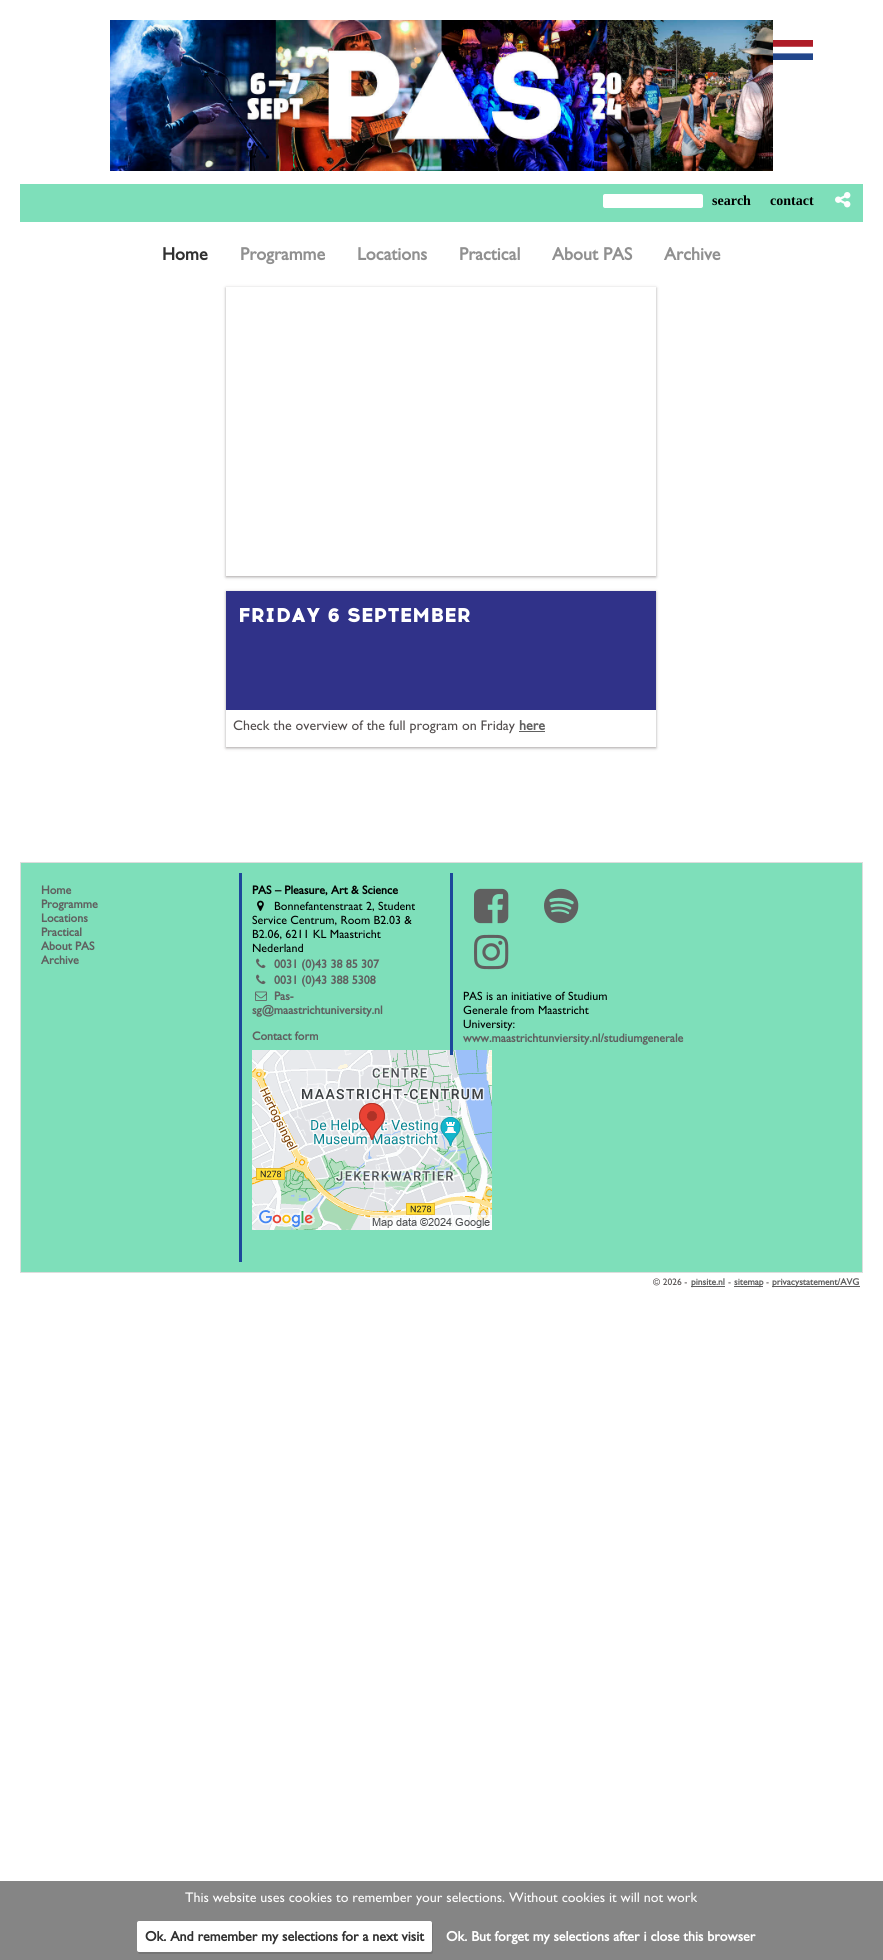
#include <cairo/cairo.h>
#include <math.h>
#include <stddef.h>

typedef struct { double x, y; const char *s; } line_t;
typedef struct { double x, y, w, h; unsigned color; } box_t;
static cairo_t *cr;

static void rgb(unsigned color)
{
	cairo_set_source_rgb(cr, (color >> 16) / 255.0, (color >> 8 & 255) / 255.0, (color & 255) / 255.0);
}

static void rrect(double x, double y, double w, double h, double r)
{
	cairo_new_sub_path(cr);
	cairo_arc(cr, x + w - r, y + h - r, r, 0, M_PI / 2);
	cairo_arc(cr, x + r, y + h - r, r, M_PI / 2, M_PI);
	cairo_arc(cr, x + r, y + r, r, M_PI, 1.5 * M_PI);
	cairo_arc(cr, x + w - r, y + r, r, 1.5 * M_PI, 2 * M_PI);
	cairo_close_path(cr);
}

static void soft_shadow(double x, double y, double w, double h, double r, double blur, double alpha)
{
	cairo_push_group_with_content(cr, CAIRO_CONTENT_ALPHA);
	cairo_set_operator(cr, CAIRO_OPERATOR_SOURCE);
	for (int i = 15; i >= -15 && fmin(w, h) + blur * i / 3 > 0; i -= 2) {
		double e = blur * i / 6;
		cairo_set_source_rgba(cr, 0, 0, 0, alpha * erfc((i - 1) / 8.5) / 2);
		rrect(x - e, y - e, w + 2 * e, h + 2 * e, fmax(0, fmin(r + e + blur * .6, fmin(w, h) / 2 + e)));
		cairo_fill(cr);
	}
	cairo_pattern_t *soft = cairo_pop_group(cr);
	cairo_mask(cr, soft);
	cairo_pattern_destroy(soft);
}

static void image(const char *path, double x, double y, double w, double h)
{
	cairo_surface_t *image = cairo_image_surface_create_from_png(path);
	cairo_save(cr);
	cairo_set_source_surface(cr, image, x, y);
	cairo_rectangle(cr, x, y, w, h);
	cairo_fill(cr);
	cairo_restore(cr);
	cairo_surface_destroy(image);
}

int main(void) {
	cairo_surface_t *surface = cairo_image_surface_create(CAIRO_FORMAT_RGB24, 883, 1960);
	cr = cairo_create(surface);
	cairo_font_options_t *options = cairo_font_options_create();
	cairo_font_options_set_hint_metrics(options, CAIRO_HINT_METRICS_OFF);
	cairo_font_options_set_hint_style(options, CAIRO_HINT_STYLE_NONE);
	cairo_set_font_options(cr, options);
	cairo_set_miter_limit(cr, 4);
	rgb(0xffffff);
	cairo_paint(cr);
	image("img/1.png", 110, 20, 663, 151);
	image("img/2.png", 773, 40, 40, 20);
	rgb(0x7edfba);
	cairo_rectangle(cr, 20, 184, 843, 38);
	cairo_fill(cr);
	rgb(0xffffff);
	rrect(603, 194, 100, 14, 2);
	cairo_fill(cr);
	image("img/3.png", 835, 192, 16, 16);
	cairo_save(cr);
	cairo_set_fill_rule(cr, CAIRO_FILL_RULE_EVEN_ODD);
	cairo_new_path(cr);
	cairo_move_to(cr, 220, 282);
	cairo_line_to(cr, 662, 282);
	cairo_line_to(cr, 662, 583);
	cairo_line_to(cr, 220, 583);
	cairo_close_path(cr);
	cairo_move_to(cr, 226, 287);
	cairo_line_to(cr, 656, 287);
	cairo_line_to(cr, 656, 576);
	cairo_line_to(cr, 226, 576);
	cairo_close_path(cr);
	cairo_clip(cr);
	rgb(0x221919);
	soft_shadow(226, 288, 430, 289, 0, 1.5, 0.4);
	cairo_restore(cr);
	cairo_save(cr);
	cairo_set_fill_rule(cr, CAIRO_FILL_RULE_EVEN_ODD);
	cairo_new_path(cr);
	cairo_move_to(cr, 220, 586);
	cairo_line_to(cr, 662, 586);
	cairo_line_to(cr, 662, 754);
	cairo_line_to(cr, 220, 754);
	cairo_close_path(cr);
	cairo_move_to(cr, 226, 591);
	cairo_line_to(cr, 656, 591);
	cairo_line_to(cr, 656, 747);
	cairo_line_to(cr, 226, 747);
	cairo_close_path(cr);
	cairo_clip(cr);
	rgb(0x221919);
	soft_shadow(226, 592, 430, 156, 0, 1.5, 0.4);
	cairo_restore(cr);
	rgb(0x303289);
	cairo_rectangle(cr, 226, 591, 430, 119);
	cairo_fill(cr);
	rgb(0x606060);
	cairo_rectangle(cr, 519, 731, 26, 1);
	cairo_fill(cr);
	rgb(0x7edfba);
	cairo_rectangle(cr, 20.5, 862.5, 842, 410);
	cairo_fill_preserve(cr);
	rgb(0xdddddd);
	cairo_set_line_width(cr, 1);
	cairo_stroke(cr);
	rgb(0x1c489b);
	cairo_rectangle(cr, 239, 873, 3, 389);
	cairo_fill(cr);
	image("img/4.png", 257, 900, 7, 11);
	image("img/5.png", 256, 958, 10, 11);
	image("img/5.png", 256, 974, 10, 11);
	image("img/6.png", 255, 991, 12, 10);
	image("img/7.png", 252, 1050, 240, 180);
	cairo_rectangle(cr, 450, 873, 3, 182);
	cairo_fill(cr);
	image("img/8.png", 474, 888, 35, 36);
	image("img/9.png", 544, 888, 35, 36);
	image("img/10.png", 474, 934, 35, 36);
	{
		static const box_t items[] = {
			{691, 1286, 34, 1, 0x606060},
			{734, 1286, 29, 1, 0x606060},
			{772, 1286, 88, 1, 0x606060},
			{0, 1881, 883, 79, 0x858585},
		};
		for (size_t i = 0; i < sizeof items / sizeof *items; i++) {
			rgb(items[i].color);
			cairo_rectangle(cr, items[i].x, items[i].y, items[i].w, items[i].h);
			cairo_fill(cr);
		}
	}
	rgb(0x757575);
	cairo_new_path(cr);
	cairo_move_to(cr, 138, 1952);
	cairo_curve_to(cr, 138, 1953, 139, 1954, 140, 1954);
	cairo_line_to(cr, 431, 1954);
	cairo_curve_to(cr, 432, 1954, 433, 1953, 433, 1952);
	cairo_line_to(cr, 433, 1925);
	cairo_curve_to(cr, 433, 1924, 433, 1924, 432, 1923);
	cairo_line_to(cr, 432, 1941);
	cairo_curve_to(cr, 432, 1943, 434, 1952, 430, 1952);
	cairo_close_path(cr);
	cairo_fill(cr);
	rgb(0xffffff);
	rrect(137, 1921, 295, 31, 2);
	cairo_fill(cr);
	cairo_select_font_face(cr, "Liberation Serif", CAIRO_FONT_SLANT_NORMAL, CAIRO_FONT_WEIGHT_BOLD);
	cairo_set_font_size(cr, 14);
	rgb(0x000000);
	cairo_move_to(cr, 712, 205);
	cairo_show_text(cr, "search");
	cairo_move_to(cr, 770, 205);
	cairo_show_text(cr, "contact");
	cairo_select_font_face(cr, "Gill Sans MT", CAIRO_FONT_SLANT_NORMAL, CAIRO_FONT_WEIGHT_BOLD);
	cairo_set_font_size(cr, 18);
	rgb(0x303030);
	cairo_move_to(cr, 162, 260);
	cairo_show_text(cr, "Home");
	rgb(0x909090);
	{
		static const line_t items[] = {
			{240, 260, "Programme"},
			{357, 260, "Locations"},
			{459, 260, "Practical"},
			{552, 260, "About PAS"},
			{664, 260, "Archive"},
		};
		for (size_t i = 0; i < sizeof items / sizeof *items; i++) {
			cairo_move_to(cr, items[i].x, items[i].y);
			cairo_show_text(cr, items[i].s);
		}
	}
	cairo_select_font_face(cr, "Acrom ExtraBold", CAIRO_FONT_SLANT_NORMAL, CAIRO_FONT_WEIGHT_NORMAL);
	cairo_set_font_size(cr, 20);
	rgb(0xffffff);
	cairo_move_to(cr, 238, 622);
	cairo_show_text(cr, "FRIDAY 6 SEPTEMBER");
	cairo_select_font_face(cr, "Gill Sans MT", CAIRO_FONT_SLANT_NORMAL, CAIRO_FONT_WEIGHT_NORMAL);
	cairo_set_font_size(cr, 14);
	rgb(0x524d4d);
	cairo_move_to(cr, 233, 730);
	cairo_show_text(cr, "Check the overview of the full program on Friday");
	cairo_select_font_face(cr, "Gill Sans MT", CAIRO_FONT_SLANT_NORMAL, CAIRO_FONT_WEIGHT_BOLD);
	rgb(0x606060);
	cairo_move_to(cr, 519, 730);
	cairo_show_text(cr, "here");
	cairo_set_font_size(cr, 12);
	{
		static const line_t items[] = {
			{41, 894, "Home"},
			{41, 908, "Programme"},
			{41, 922, "Locations"},
			{41, 936, "Practical"},
			{41, 950, "About PAS"},
			{41, 964, "Archive"},
		};
		for (size_t i = 0; i < sizeof items / sizeof *items; i++) {
			cairo_move_to(cr, items[i].x, items[i].y);
			cairo_show_text(cr, items[i].s);
		}
	}
	rgb(0x000000);
	cairo_move_to(cr, 252, 894);
	cairo_show_text(cr, "PAS – Pleasure, Art & Science");
	cairo_select_font_face(cr, "Gill Sans MT", CAIRO_FONT_SLANT_NORMAL, CAIRO_FONT_WEIGHT_NORMAL);
	{
		static const line_t items[] = {
			{274, 910, "Bonnefantenstraat 2, Student"},
			{252, 924, "Service Centrum, Room B2.03 &"},
			{252, 938, "B2.06, 6211 KL Maastricht"},
			{252, 952, "Nederland"},
		};
		for (size_t i = 0; i < sizeof items / sizeof *items; i++) {
			cairo_move_to(cr, items[i].x, items[i].y);
			cairo_show_text(cr, items[i].s);
		}
	}
	cairo_select_font_face(cr, "Gill Sans MT", CAIRO_FONT_SLANT_NORMAL, CAIRO_FONT_WEIGHT_BOLD);
	rgb(0x606060);
	{
		static const line_t items[] = {
			{274, 968, "0031 (0)43 38 85 307"},
			{274, 984, "0031 (0)43 388 5308"},
			{274, 1000, "Pas-"},
			{252, 1014, "sg@maastrichtuniversity.nl"},
			{252, 1040, "Contact form"},
		};
		for (size_t i = 0; i < sizeof items / sizeof *items; i++) {
			cairo_move_to(cr, items[i].x, items[i].y);
			cairo_show_text(cr, items[i].s);
		}
	}
	cairo_select_font_face(cr, "Gill Sans MT", CAIRO_FONT_SLANT_NORMAL, CAIRO_FONT_WEIGHT_NORMAL);
	rgb(0x000000);
	{
		static const line_t items[] = {
			{463, 1000, "PAS is an initiative of Studium"},
			{463, 1014, "Generale from Maastricht"},
			{463, 1028, "University:"},
		};
		for (size_t i = 0; i < sizeof items / sizeof *items; i++) {
			cairo_move_to(cr, items[i].x, items[i].y);
			cairo_show_text(cr, items[i].s);
		}
	}
	cairo_select_font_face(cr, "Gill Sans MT", CAIRO_FONT_SLANT_NORMAL, CAIRO_FONT_WEIGHT_BOLD);
	rgb(0x606060);
	cairo_move_to(cr, 463, 1042);
	cairo_show_text(cr, "www.maastrichtunviersity.nl/studiumgenerale");
	cairo_select_font_face(cr, "Gill Sans MT", CAIRO_FONT_SLANT_NORMAL, CAIRO_FONT_WEIGHT_NORMAL);
	cairo_set_font_size(cr, 9.5);
	rgb(0x524d4d);
	cairo_move_to(cr, 653, 1285);
	cairo_show_text(cr, "© 2026 -");
	cairo_select_font_face(cr, "Gill Sans MT", CAIRO_FONT_SLANT_NORMAL, CAIRO_FONT_WEIGHT_BOLD);
	rgb(0x606060);
	cairo_move_to(cr, 691, 1285);
	cairo_show_text(cr, "pinsite.nl");
	cairo_select_font_face(cr, "Gill Sans MT", CAIRO_FONT_SLANT_NORMAL, CAIRO_FONT_WEIGHT_NORMAL);
	rgb(0x524d4d);
	cairo_move_to(cr, 728, 1285);
	cairo_show_text(cr, "-");
	cairo_select_font_face(cr, "Gill Sans MT", CAIRO_FONT_SLANT_NORMAL, CAIRO_FONT_WEIGHT_BOLD);
	rgb(0x606060);
	cairo_move_to(cr, 734, 1285);
	cairo_show_text(cr, "sitemap");
	cairo_select_font_face(cr, "Gill Sans MT", CAIRO_FONT_SLANT_NORMAL, CAIRO_FONT_WEIGHT_NORMAL);
	rgb(0x524d4d);
	cairo_move_to(cr, 766, 1285);
	cairo_show_text(cr, "-");
	cairo_select_font_face(cr, "Gill Sans MT", CAIRO_FONT_SLANT_NORMAL, CAIRO_FONT_WEIGHT_BOLD);
	rgb(0x606060);
	cairo_move_to(cr, 772, 1285);
	cairo_show_text(cr, "privacystatement/AVG");
	cairo_select_font_face(cr, "Gill Sans MT", CAIRO_FONT_SLANT_NORMAL, CAIRO_FONT_WEIGHT_NORMAL);
	cairo_set_font_size(cr, 14);
	rgb(0xffffff);
	cairo_move_to(cr, 185, 1902);
	cairo_show_text(cr, "This website uses cookies to remember your selections. Without cookies it will not work");
	cairo_select_font_face(cr, "Gill Sans MT", CAIRO_FONT_SLANT_NORMAL, CAIRO_FONT_WEIGHT_BOLD);
	rgb(0x303030);
	cairo_move_to(cr, 145, 1941);
	cairo_show_text(cr, "Ok. And remember my selections for a next visit");
	rgb(0xffffff);
	cairo_move_to(cr, 446, 1941);
	cairo_show_text(cr, "Ok. But forget my selections after i close this browser");
	cairo_surface_write_to_png(surface, "page.png");
	cairo_font_options_destroy(options);
	cairo_destroy(cr);
	cairo_surface_destroy(surface);
	return 0;
}
